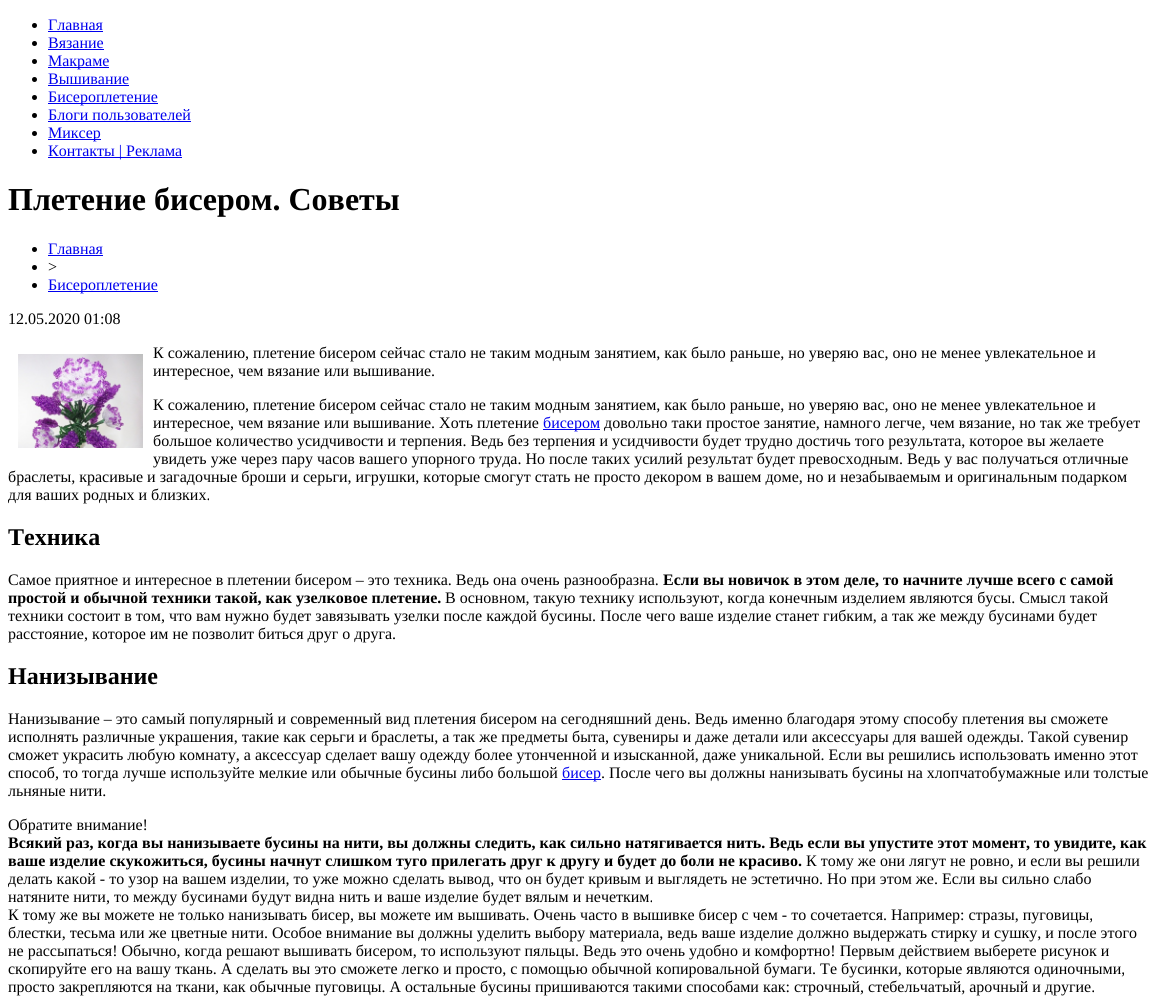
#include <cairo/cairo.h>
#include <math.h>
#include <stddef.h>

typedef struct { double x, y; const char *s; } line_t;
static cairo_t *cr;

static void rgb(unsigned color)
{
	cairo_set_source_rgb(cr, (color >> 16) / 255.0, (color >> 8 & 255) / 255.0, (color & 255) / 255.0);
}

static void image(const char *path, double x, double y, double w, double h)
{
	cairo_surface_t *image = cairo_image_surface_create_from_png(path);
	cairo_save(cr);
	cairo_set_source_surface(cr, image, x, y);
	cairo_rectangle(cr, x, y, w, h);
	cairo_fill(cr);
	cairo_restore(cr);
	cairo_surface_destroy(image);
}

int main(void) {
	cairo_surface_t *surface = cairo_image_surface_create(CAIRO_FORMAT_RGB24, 1157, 1003);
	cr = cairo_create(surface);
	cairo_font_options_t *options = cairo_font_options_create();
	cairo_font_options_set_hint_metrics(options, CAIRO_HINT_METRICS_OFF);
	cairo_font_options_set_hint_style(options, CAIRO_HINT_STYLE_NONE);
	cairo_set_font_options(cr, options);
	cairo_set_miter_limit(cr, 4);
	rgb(0xffffff);
	cairo_paint(cr);
	rgb(0x000000);
	cairo_arc(cr, 34.5, 25.5, 2.5, 0, 2 * M_PI);
	cairo_fill(cr);
	rgb(0x0000ee);
	cairo_rectangle(cr, 48, 31, 55, 1);
	cairo_fill(cr);
	rgb(0x000000);
	cairo_arc(cr, 34.5, 43.5, 2.5, 0, 2 * M_PI);
	cairo_fill(cr);
	rgb(0x0000ee);
	cairo_rectangle(cr, 48, 49, 56, 1);
	cairo_fill(cr);
	rgb(0x000000);
	cairo_arc(cr, 34.5, 61.5, 2.5, 0, 2 * M_PI);
	cairo_fill(cr);
	rgb(0x0000ee);
	cairo_rectangle(cr, 48, 67, 61, 1);
	cairo_fill(cr);
	rgb(0x000000);
	cairo_arc(cr, 34.5, 79.5, 2.5, 0, 2 * M_PI);
	cairo_fill(cr);
	rgb(0x0000ee);
	cairo_rectangle(cr, 48, 85, 81, 1);
	cairo_fill(cr);
	rgb(0x000000);
	cairo_arc(cr, 34.5, 97.5, 2.5, 0, 2 * M_PI);
	cairo_fill(cr);
	rgb(0x0000ee);
	cairo_rectangle(cr, 48, 103, 110, 1);
	cairo_fill(cr);
	rgb(0x000000);
	cairo_arc(cr, 34.5, 115.5, 2.5, 0, 2 * M_PI);
	cairo_fill(cr);
	rgb(0x0000ee);
	cairo_rectangle(cr, 48, 121, 143, 1);
	cairo_fill(cr);
	rgb(0x000000);
	cairo_arc(cr, 34.5, 133.5, 2.5, 0, 2 * M_PI);
	cairo_fill(cr);
	rgb(0x0000ee);
	cairo_rectangle(cr, 48, 139, 53, 1);
	cairo_fill(cr);
	rgb(0x000000);
	cairo_arc(cr, 34.5, 151.5, 2.5, 0, 2 * M_PI);
	cairo_fill(cr);
	rgb(0x0000ee);
	cairo_rectangle(cr, 48, 157, 134, 1);
	cairo_fill(cr);
	rgb(0x000000);
	cairo_arc(cr, 34.5, 249.5, 2.5, 0, 2 * M_PI);
	cairo_fill(cr);
	rgb(0x0000ee);
	cairo_rectangle(cr, 48, 255, 55, 1);
	cairo_fill(cr);
	rgb(0x000000);
	cairo_arc(cr, 34.5, 267.5, 2.5, 0, 2 * M_PI);
	cairo_fill(cr);
	cairo_arc(cr, 34.5, 285.5, 2.5, 0, 2 * M_PI);
	cairo_fill(cr);
	rgb(0x0000ee);
	cairo_rectangle(cr, 48, 291, 110, 1);
	cairo_fill(cr);
	image("img/1.png", 18, 354, 125, 94);
	cairo_rectangle(cr, 543, 429, 57, 1);
	cairo_fill(cr);
	cairo_rectangle(cr, 562, 779, 39, 1);
	cairo_fill(cr);
	cairo_select_font_face(cr, "Liberation Serif", CAIRO_FONT_SLANT_NORMAL, CAIRO_FONT_WEIGHT_NORMAL);
	cairo_set_font_size(cr, 16);
	{
		static const line_t items[] = {
			{48, 30, "Главная"},
			{48, 48, "Вязание"},
			{48, 66, "Макраме"},
			{48, 84, "Вышивание"},
			{48, 102, "Бисероплетение"},
			{48, 120, "Блоги пользователей"},
			{48, 138, "Миксер"},
			{48, 156, "Контакты | Реклама"},
		};
		for (size_t i = 0; i < sizeof items / sizeof *items; i++) {
			cairo_move_to(cr, items[i].x, items[i].y);
			cairo_show_text(cr, items[i].s);
		}
	}
	cairo_select_font_face(cr, "Liberation Serif", CAIRO_FONT_SLANT_NORMAL, CAIRO_FONT_WEIGHT_BOLD);
	cairo_set_font_size(cr, 32);
	rgb(0x000000);
	cairo_move_to(cr, 8, 210);
	cairo_show_text(cr, "Плетение бисером. Советы");
	cairo_select_font_face(cr, "Liberation Serif", CAIRO_FONT_SLANT_NORMAL, CAIRO_FONT_WEIGHT_NORMAL);
	cairo_set_font_size(cr, 16);
	rgb(0x0000ee);
	cairo_move_to(cr, 48, 254);
	cairo_show_text(cr, "Главная");
	rgb(0x000000);
	cairo_move_to(cr, 48, 272);
	cairo_show_text(cr, ">");
	rgb(0x0000ee);
	cairo_move_to(cr, 48, 290);
	cairo_show_text(cr, "Бисероплетение");
	rgb(0x000000);
	{
		static const line_t items[] = {
			{8, 324, "12.05.2020 01:08"},
			{153, 358, "К сожалению, плетение бисером сейчас стало не таким модным занятием, как было раньше, но уверяю вас, оно не менее увлекательное и"},
			{153, 376, "интересное, чем вязание или вышивание."},
			{153, 410, "К сожалению, плетение бисером сейчас стало не таким модным занятием, как было раньше, но уверяю вас, оно не менее увлекательное и"},
			{153, 428, "интересное, чем вязание или вышивание. Хоть плетение"},
		};
		for (size_t i = 0; i < sizeof items / sizeof *items; i++) {
			cairo_move_to(cr, items[i].x, items[i].y);
			cairo_show_text(cr, items[i].s);
		}
	}
	rgb(0x0000ee);
	cairo_move_to(cr, 543, 428);
	cairo_show_text(cr, "бисером");
	rgb(0x000000);
	{
		static const line_t items[] = {
			{604, 428, "довольно таки простое занятие, намного легче, чем вязание, но так же требует"},
			{153, 446, "большое количество усидчивости и терпения. Ведь без терпения и усидчивости будет трудно достичь того результата, которое вы желаете"},
			{153, 464, "увидеть уже через пару часов вашего упорного труда. Но после таких усилий результат будет превосходным. Ведь у вас получаться отличные"},
			{8, 482, "браслеты, красивые и загадочные броши и серьги, игрушки, которые смогут стать не просто декором в вашем доме, но и незабываемым и оригинальным подарком"},
			{8, 500, "для ваших родных и близких."},
		};
		for (size_t i = 0; i < sizeof items / sizeof *items; i++) {
			cairo_move_to(cr, items[i].x, items[i].y);
			cairo_show_text(cr, items[i].s);
		}
	}
	cairo_select_font_face(cr, "Liberation Serif", CAIRO_FONT_SLANT_NORMAL, CAIRO_FONT_WEIGHT_BOLD);
	cairo_set_font_size(cr, 24);
	cairo_move_to(cr, 8, 545);
	cairo_show_text(cr, "Техника");
	cairo_select_font_face(cr, "Liberation Serif", CAIRO_FONT_SLANT_NORMAL, CAIRO_FONT_WEIGHT_NORMAL);
	cairo_set_font_size(cr, 16);
	cairo_move_to(cr, 8, 585);
	cairo_show_text(cr, "Самое приятное и интересное в плетении бисером – это техника. Ведь она очень разнообразна.");
	cairo_select_font_face(cr, "Liberation Serif", CAIRO_FONT_SLANT_NORMAL, CAIRO_FONT_WEIGHT_BOLD);
	cairo_move_to(cr, 663, 585);
	cairo_show_text(cr, "Если вы новичок в этом деле, то начните лучше всего с самой");
	cairo_move_to(cr, 8, 603);
	cairo_show_text(cr, "простой и обычной техники такой, как узелковое плетение.");
	cairo_select_font_face(cr, "Liberation Serif", CAIRO_FONT_SLANT_NORMAL, CAIRO_FONT_WEIGHT_NORMAL);
	{
		static const line_t items[] = {
			{445, 603, "В основном, такую технику используют, когда конечным изделием являются бусы. Смысл такой"},
			{8, 621, "техники состоит в том, что вам нужно будет завязывать узелки после каждой бусины. После чего ваше изделие станет гибким, а так же между бусинами будет"},
			{8, 639, "расстояние, которое им не позволит биться друг о друга."},
		};
		for (size_t i = 0; i < sizeof items / sizeof *items; i++) {
			cairo_move_to(cr, items[i].x, items[i].y);
			cairo_show_text(cr, items[i].s);
		}
	}
	cairo_select_font_face(cr, "Liberation Serif", CAIRO_FONT_SLANT_NORMAL, CAIRO_FONT_WEIGHT_BOLD);
	cairo_set_font_size(cr, 24);
	cairo_move_to(cr, 8, 684);
	cairo_show_text(cr, "Нанизывание");
	cairo_select_font_face(cr, "Liberation Serif", CAIRO_FONT_SLANT_NORMAL, CAIRO_FONT_WEIGHT_NORMAL);
	cairo_set_font_size(cr, 16);
	{
		static const line_t items[] = {
			{8, 724, "Нанизывание – это самый популярный и современный вид плетения бисером на сегодняшний день. Ведь именно благодаря этому способу плетения вы сможете"},
			{8, 742, "исполнять различные украшения, такие как серьги и браслеты, а так же предметы быта, сувениры и даже детали или аксессуары для вашей одежды. Такой сувенир"},
			{8, 760, "сможет украсить любую комнату, а аксессуар сделает вашу одежду более утонченной и изысканной, даже уникальной. Если вы решились использовать именно этот"},
			{8, 778, "способ, то тогда лучше используйте мелкие или обычные бусины либо большой"},
		};
		for (size_t i = 0; i < sizeof items / sizeof *items; i++) {
			cairo_move_to(cr, items[i].x, items[i].y);
			cairo_show_text(cr, items[i].s);
		}
	}
	rgb(0x0000ee);
	cairo_move_to(cr, 562, 778);
	cairo_show_text(cr, "бисер");
	rgb(0x000000);
	{
		static const line_t items[] = {
			{601, 778, ". После чего вы должны нанизывать бусины на хлопчатобумажные или толстые"},
			{8, 796, "льняные нити."},
			{8, 830, "Обратите внимание!"},
		};
		for (size_t i = 0; i < sizeof items / sizeof *items; i++) {
			cairo_move_to(cr, items[i].x, items[i].y);
			cairo_show_text(cr, items[i].s);
		}
	}
	cairo_select_font_face(cr, "Liberation Serif", CAIRO_FONT_SLANT_NORMAL, CAIRO_FONT_WEIGHT_BOLD);
	cairo_move_to(cr, 8, 848);
	cairo_show_text(cr, "Всякий раз, когда вы нанизываете бусины на нити, вы должны следить, как сильно натягивается нить. Ведь если вы упустите этот момент, то увидите, как");
	cairo_move_to(cr, 8, 866);
	cairo_show_text(cr, "ваше изделие скукожиться, бусины начнут слишком туго прилегать друг к другу и будет до боли не красиво.");
	cairo_select_font_face(cr, "Liberation Serif", CAIRO_FONT_SLANT_NORMAL, CAIRO_FONT_WEIGHT_NORMAL);
	{
		static const line_t items[] = {
			{806, 866, "К тому же они лягут не ровно, и если вы решили"},
			{8, 884, "делать какой - то узор на вашем изделии, то уже можно сделать вывод, что он будет кривым и выглядеть не эстетично. Но при этом же. Если вы сильно слабо"},
			{8, 902, "натяните нити, то между бусинами будут видна нить и ваше изделие будет вялым и нечетким."},
			{8, 920, "К тому же вы можете не только нанизывать бисер, вы можете им вышивать. Очень часто в вышивке бисер с чем - то сочетается. Например: стразы, пуговицы,"},
			{8, 938, "блестки, тесьма или же цветные нити. Особое внимание вы должны уделить выбору материала, ведь ваше изделие должно выдержать стирку и сушку, и после этого"},
			{8, 956, "не рассыпаться! Обычно, когда решают вышивать бисером, то используют пяльцы. Ведь это очень удобно и комфортно! Первым действием выберете рисунок и"},
			{8, 974, "скопируйте его на вашу ткань. А сделать вы это сможете легко и просто, с помощью обычной копировальной бумаги. Те бусинки, которые являются одиночными,"},
			{8, 992, "просто закрепляются на ткани, как обычные пуговицы. А остальные бусины пришиваются такими способами как: строчный, стебельчатый, арочный и другие."},
		};
		for (size_t i = 0; i < sizeof items / sizeof *items; i++) {
			cairo_move_to(cr, items[i].x, items[i].y);
			cairo_show_text(cr, items[i].s);
		}
	}
	cairo_surface_write_to_png(surface, "page.png");
	cairo_font_options_destroy(options);
	cairo_destroy(cr);
	cairo_surface_destroy(surface);
	return 0;
}
